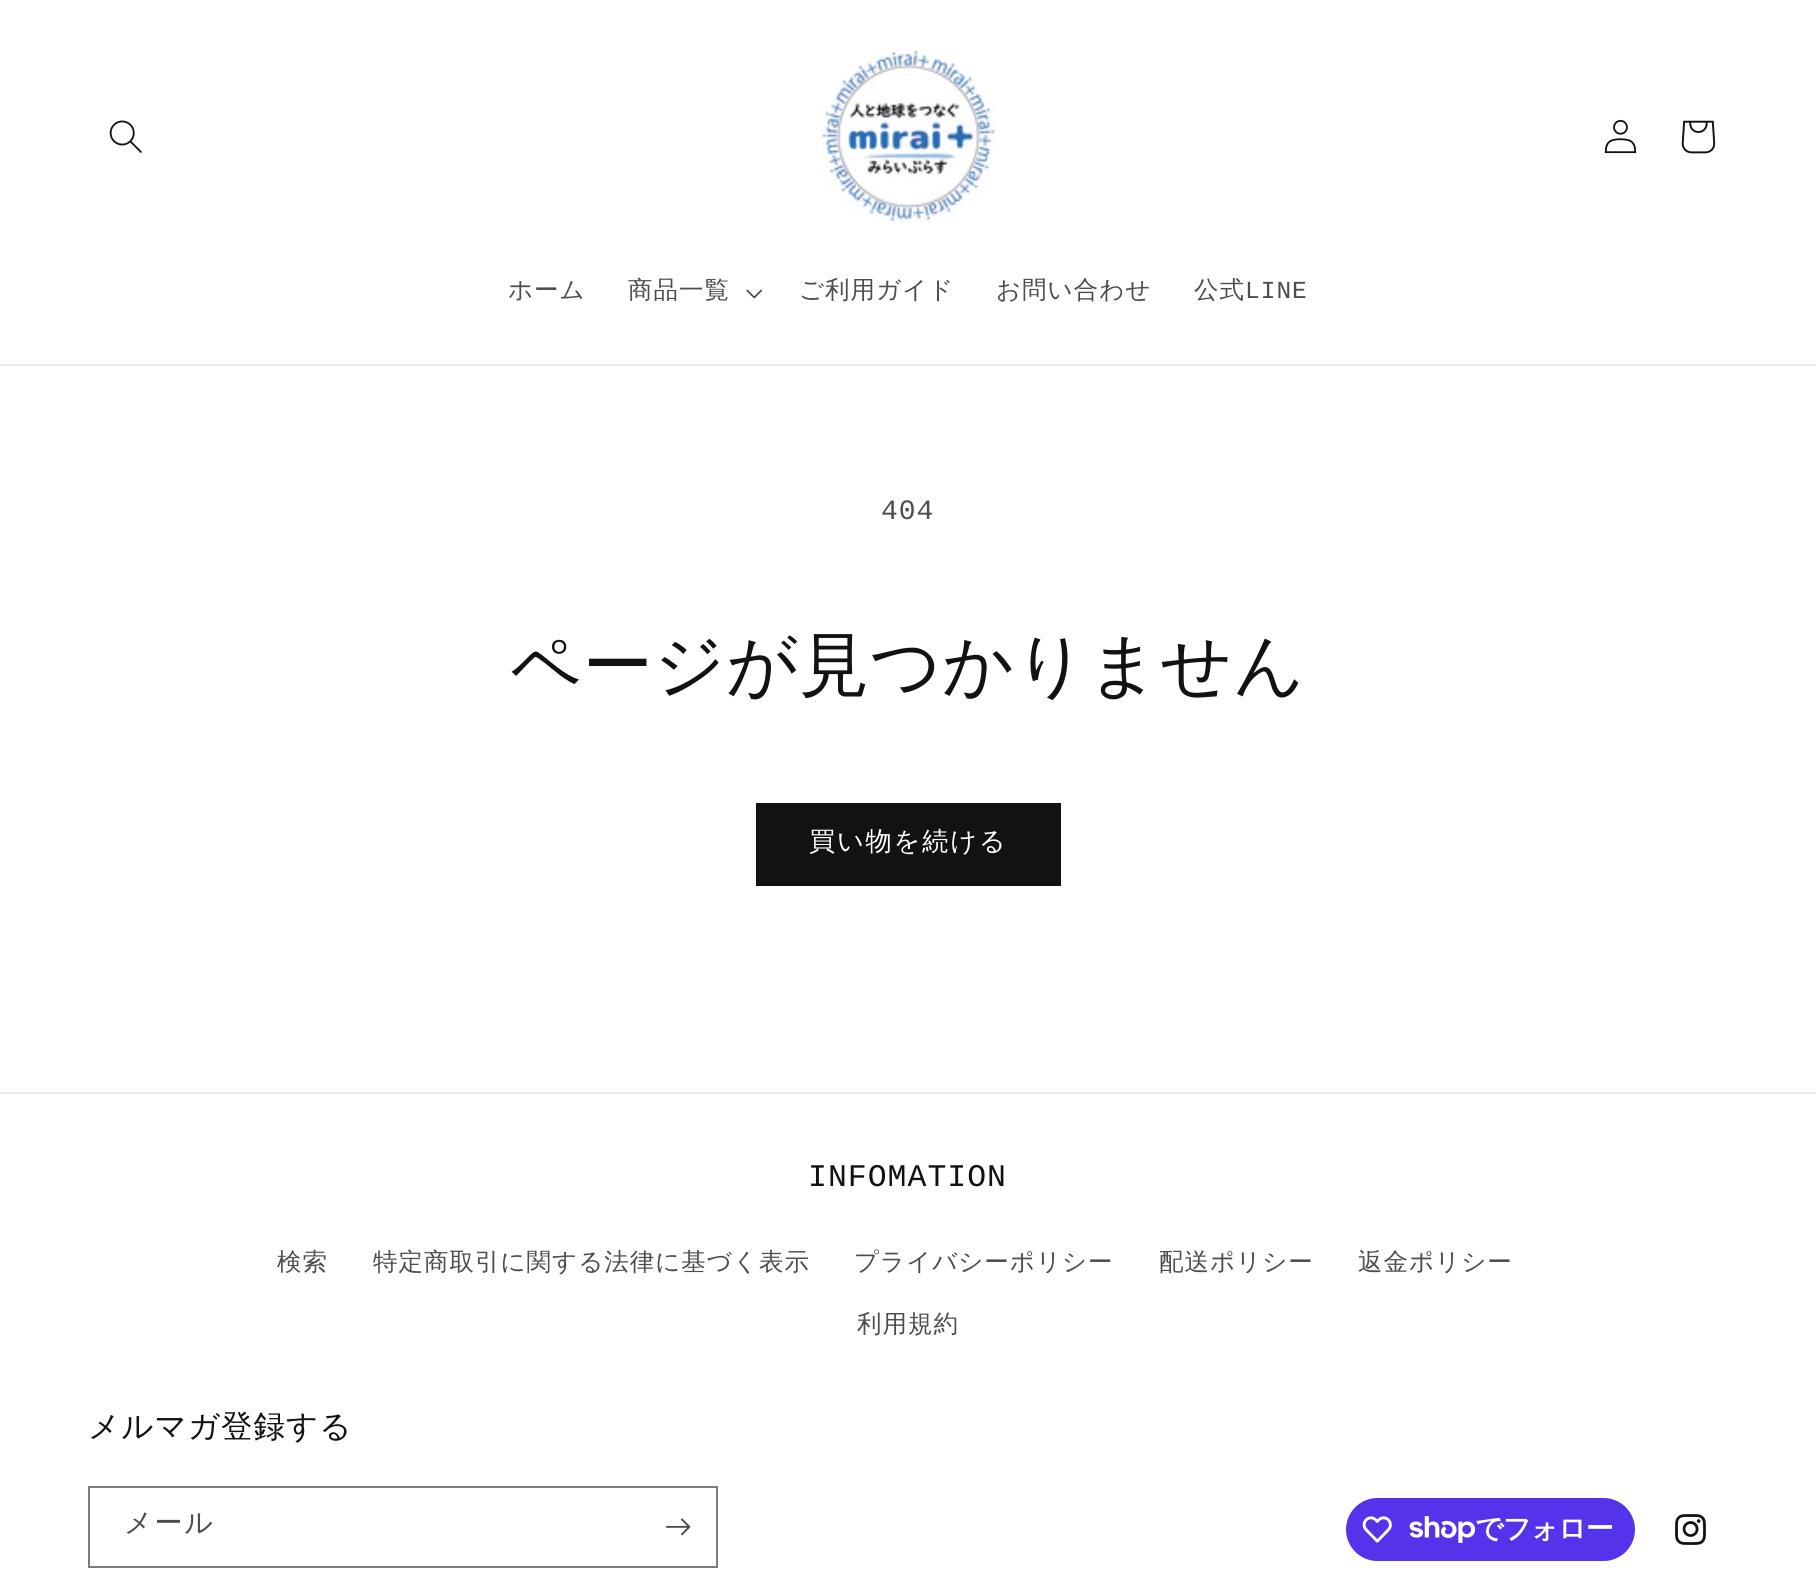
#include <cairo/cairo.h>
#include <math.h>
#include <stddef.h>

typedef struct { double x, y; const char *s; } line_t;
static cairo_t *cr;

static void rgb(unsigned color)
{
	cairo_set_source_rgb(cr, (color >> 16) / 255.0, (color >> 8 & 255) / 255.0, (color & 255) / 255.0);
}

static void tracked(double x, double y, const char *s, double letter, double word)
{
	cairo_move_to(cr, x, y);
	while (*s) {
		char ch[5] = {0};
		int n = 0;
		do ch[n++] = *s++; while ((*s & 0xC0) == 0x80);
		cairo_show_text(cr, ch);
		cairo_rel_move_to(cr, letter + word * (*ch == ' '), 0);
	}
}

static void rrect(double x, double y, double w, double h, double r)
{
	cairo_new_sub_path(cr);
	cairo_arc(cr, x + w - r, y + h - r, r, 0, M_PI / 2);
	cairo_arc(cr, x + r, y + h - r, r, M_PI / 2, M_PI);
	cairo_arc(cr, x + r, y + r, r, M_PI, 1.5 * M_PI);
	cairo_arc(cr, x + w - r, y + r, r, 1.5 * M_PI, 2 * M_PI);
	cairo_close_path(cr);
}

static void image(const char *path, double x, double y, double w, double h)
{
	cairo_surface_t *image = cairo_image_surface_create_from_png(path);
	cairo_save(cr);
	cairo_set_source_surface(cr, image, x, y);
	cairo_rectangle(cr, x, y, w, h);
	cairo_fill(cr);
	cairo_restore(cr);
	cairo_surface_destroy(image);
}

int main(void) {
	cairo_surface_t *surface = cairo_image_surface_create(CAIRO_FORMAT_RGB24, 1816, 1583);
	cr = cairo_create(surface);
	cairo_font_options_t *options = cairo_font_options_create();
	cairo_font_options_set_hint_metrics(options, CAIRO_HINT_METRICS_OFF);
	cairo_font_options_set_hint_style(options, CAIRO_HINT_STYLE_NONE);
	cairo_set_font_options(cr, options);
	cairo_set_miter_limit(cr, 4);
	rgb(0xffffff);
	cairo_paint(cr);
	rgb(0xececec);
	cairo_rectangle(cr, 0, 364, 1816, 2);
	cairo_fill(cr);
	image("img/1.png", 109, 120, 33, 33);
	image("img/2.png", 821, 49, 175, 175);
	image("img/3.png", 1604, 119, 33, 35);
	image("img/4.png", 1681, 120, 35, 34);
	image("img/5.png", 746, 289, 17, 10);
	rgb(0x121212);
	cairo_rectangle(cr, 756, 803, 305, 83);
	cairo_fill(cr);
	rgb(0xececec);
	cairo_rectangle(cr, 0, 1092, 1816, 2);
	cairo_fill(cr);
	cairo_rectangle(cr, 89, 1487, 628, 80);
	rgb(0x7d7d7d);
	cairo_stroke(cr);
	image("img/6.png", 666, 1518, 25, 18);
	rgb(0x5433eb);
	rrect(1346, 1498, 289, 63, 31.5);
	cairo_fill(cr);
	image("img/7.png", 1362, 1516, 30, 27);
	image("img/8.png", 1409, 1516, 66, 27);
	image("img/9.png", 1675, 1514, 31, 31);
	cairo_select_font_face(cr, "WenQuanYi Zen Hei Medium", CAIRO_FONT_SLANT_NORMAL, CAIRO_FONT_WEIGHT_NORMAL);
	cairo_set_font_size(cr, 24.5);
	rgb(0x4d4d4d);
	{
		static const line_t items[] = {
			{508, 298, "ホーム"},
			{628, 298, "商品一覧"},
			{799, 298, "ご利用ガイド"},
			{996, 298, "お問い合わせ"},
			{1194, 298, "公式"},
		};
		for (size_t i = 0; i < sizeof items / sizeof *items; i++) {
			tracked(items[i].x, items[i].y, items[i].s, 1, 0);
		}
	}
	cairo_select_font_face(cr, "Liberation Mono", CAIRO_FONT_SLANT_NORMAL, CAIRO_FONT_WEIGHT_NORMAL);
	tracked(1245, 298, "LINE", 1, 0);
	cairo_set_font_size(cr, 28);
	tracked(881, 519, "404", 1, 0);
	cairo_select_font_face(cr, "WenQuanYi Zen Hei Medium", CAIRO_FONT_SLANT_NORMAL, CAIRO_FONT_WEIGHT_NORMAL);
	cairo_set_font_size(cr, 70);
	rgb(0x121212);
	tracked(510, 689, "ページが見つかりません", 1, 0);
	cairo_set_font_size(cr, 26.25);
	rgb(0xffffff);
	tracked(809, 850, "買い物を続ける", 1.75, 0);
	cairo_select_font_face(cr, "Liberation Mono", CAIRO_FONT_SLANT_NORMAL, CAIRO_FONT_WEIGHT_NORMAL);
	cairo_set_font_size(cr, 31.5);
	rgb(0x121212);
	tracked(808, 1186, "INFOMATION", 1, 0);
	cairo_select_font_face(cr, "WenQuanYi Zen Hei Medium", CAIRO_FONT_SLANT_NORMAL, CAIRO_FONT_WEIGHT_NORMAL);
	cairo_set_font_size(cr, 24.5);
	rgb(0x4d4d4d);
	{
		static const line_t items[] = {
			{277, 1270, "検索"},
			{373, 1270, "特定商取引に関する法律に基づく表示"},
			{854, 1270, "プライバシーポリシー"},
			{1159, 1270, "配送ポリシー"},
			{1358, 1270, "返金ポリシー"},
			{857, 1332, "利用規約"},
		};
		for (size_t i = 0; i < sizeof items / sizeof *items; i++) {
			tracked(items[i].x, items[i].y, items[i].s, 1, 0);
		}
	}
	cairo_set_font_size(cr, 31.5);
	rgb(0x121212);
	tracked(88, 1437, "メルマガ登録する", 1, 0);
	cairo_set_font_size(cr, 28);
	rgb(0x4d4d4d);
	tracked(124, 1532, "メール", 1.75, 0);
	cairo_select_font_face(cr, "WenQuanYi Zen Hei", CAIRO_FONT_SLANT_NORMAL, CAIRO_FONT_WEIGHT_BOLD);
	rgb(0xffffff);
	tracked(1475, 1538, "でフォロー", -1, 0);
	cairo_surface_write_to_png(surface, "page.png");
	cairo_font_options_destroy(options);
	cairo_destroy(cr);
	cairo_surface_destroy(surface);
	return 0;
}
